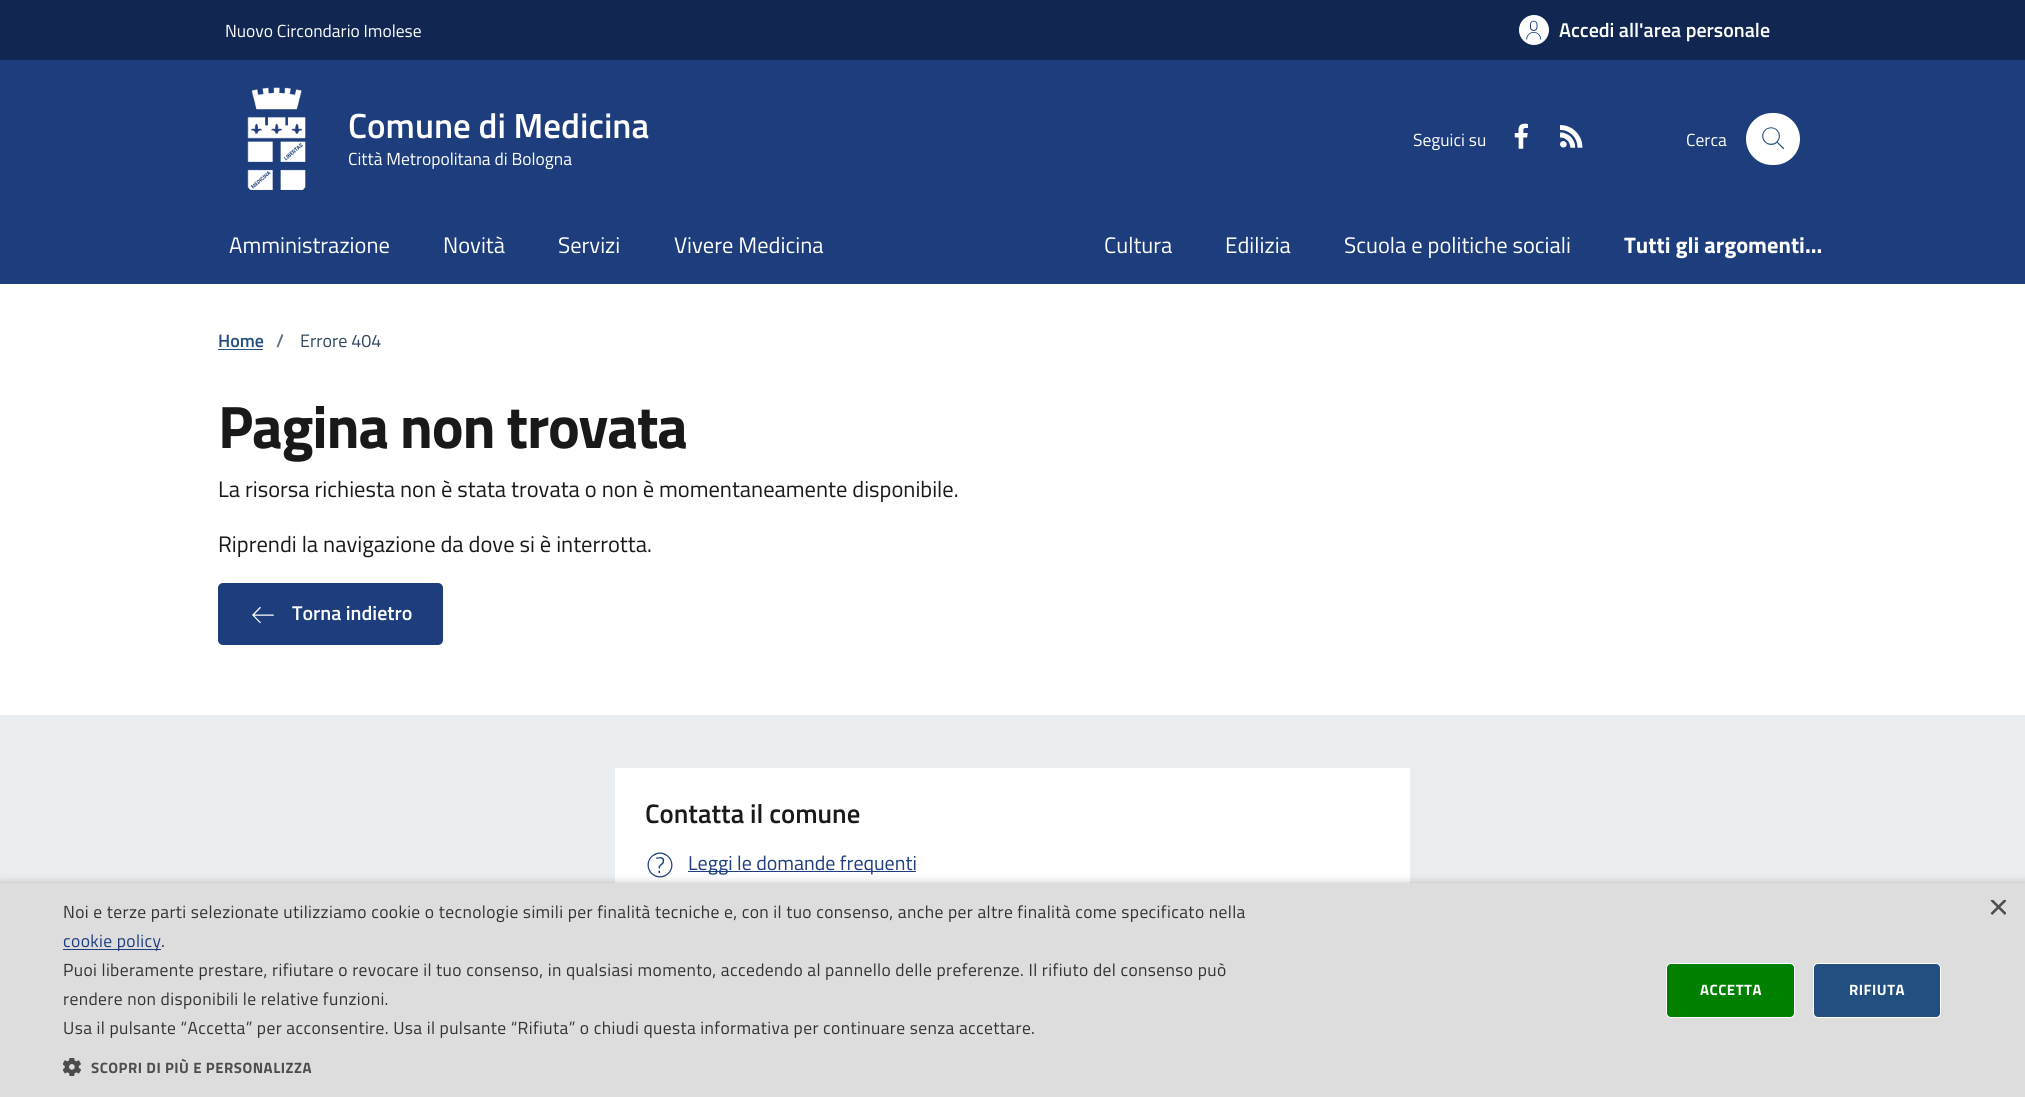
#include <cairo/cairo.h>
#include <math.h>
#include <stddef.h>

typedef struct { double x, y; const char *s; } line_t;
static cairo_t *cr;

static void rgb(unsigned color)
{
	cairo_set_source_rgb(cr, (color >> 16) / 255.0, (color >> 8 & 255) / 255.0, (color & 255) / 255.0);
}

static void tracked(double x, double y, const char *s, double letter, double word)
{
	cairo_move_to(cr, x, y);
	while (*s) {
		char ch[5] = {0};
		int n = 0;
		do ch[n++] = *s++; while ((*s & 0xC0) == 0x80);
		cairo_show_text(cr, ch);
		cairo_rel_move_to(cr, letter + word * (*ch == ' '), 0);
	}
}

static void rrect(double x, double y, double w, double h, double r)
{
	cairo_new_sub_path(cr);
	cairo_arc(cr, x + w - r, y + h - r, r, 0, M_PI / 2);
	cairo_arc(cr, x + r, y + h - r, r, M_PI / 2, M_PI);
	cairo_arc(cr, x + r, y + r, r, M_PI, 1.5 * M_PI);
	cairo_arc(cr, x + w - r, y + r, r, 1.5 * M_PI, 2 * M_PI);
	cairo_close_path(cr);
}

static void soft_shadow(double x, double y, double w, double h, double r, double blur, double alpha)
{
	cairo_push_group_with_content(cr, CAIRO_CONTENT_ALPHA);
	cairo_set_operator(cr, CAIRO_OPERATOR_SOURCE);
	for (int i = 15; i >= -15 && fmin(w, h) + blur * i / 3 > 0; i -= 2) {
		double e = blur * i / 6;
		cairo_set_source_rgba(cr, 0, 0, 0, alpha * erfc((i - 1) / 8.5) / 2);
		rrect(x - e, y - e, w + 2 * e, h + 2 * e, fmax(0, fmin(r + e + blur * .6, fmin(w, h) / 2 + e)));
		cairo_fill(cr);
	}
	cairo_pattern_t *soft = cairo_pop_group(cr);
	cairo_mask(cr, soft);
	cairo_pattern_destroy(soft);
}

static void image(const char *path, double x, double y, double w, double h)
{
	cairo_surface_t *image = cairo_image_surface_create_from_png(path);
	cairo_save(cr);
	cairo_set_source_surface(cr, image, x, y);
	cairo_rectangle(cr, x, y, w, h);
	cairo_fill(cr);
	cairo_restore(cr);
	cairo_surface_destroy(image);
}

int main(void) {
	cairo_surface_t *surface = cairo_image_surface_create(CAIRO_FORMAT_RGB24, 2025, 1097);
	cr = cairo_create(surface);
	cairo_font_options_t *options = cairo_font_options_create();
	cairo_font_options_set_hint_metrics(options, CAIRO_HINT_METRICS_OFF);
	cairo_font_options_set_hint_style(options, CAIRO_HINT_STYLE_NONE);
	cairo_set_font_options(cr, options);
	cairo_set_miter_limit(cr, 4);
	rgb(0xffffff);
	cairo_paint(cr);
	rgb(0x112752);
	cairo_rectangle(cr, 0, 0, 2025, 60);
	cairo_fill(cr);
	rgb(0xffffff);
	cairo_arc(cr, 1534, 30, 15, 0, 2 * M_PI);
	cairo_fill(cr);
	image("img/1.png", 1526, 20, 16, 20);
	rgb(0x1d3d7d);
	cairo_rectangle(cr, 0, 60, 2025, 224);
	cairo_fill(cr);
	image("img/2.png", 247, 87, 59, 103);
	image("img/3.png", 1514, 123, 14, 26);
	image("img/4.png", 1560, 125, 23, 23);
	rgb(0xffffff);
	rrect(1746, 113, 54, 52, 26);
	cairo_fill(cr);
	image("img/5.png", 1762, 127, 23, 23);
	rgb(0x235080);
	cairo_rectangle(cr, 218, 349, 45, 1);
	cairo_fill(cr);
	rgb(0x1d3d7d);
	rrect(218, 583, 225, 62, 5);
	cairo_fill(cr);
	image("img/6.png", 252, 606, 22, 18);
	rgb(0xebeef0);
	cairo_rectangle(cr, 0, 715, 2025, 168);
	cairo_fill(cr);
	rgb(0xffffff);
	cairo_rectangle(cr, 615, 768, 795, 115);
	cairo_fill(cr);
	image("img/7.png", 647, 852, 26, 26);
	rgb(0x1d3d7d);
	cairo_rectangle(cr, 688, 871, 228, 1);
	cairo_fill(cr);
	rgb(0x000000);
	soft_shadow(1, 885, 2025, 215, 0, 5, 0.35);
	rgb(0xdddddd);
	cairo_rectangle(cr, 0, 883, 2025, 214);
	cairo_fill(cr);
	rgb(0x1d3d7d);
	cairo_rectangle(cr, 63, 949, 98, 1);
	cairo_fill(cr);
	image("img/8.png", 63, 1058, 18, 18);
	rgb(0x008000);
	rrect(1666.5, 963.5, 128, 54, 4.5);
	cairo_fill_preserve(cr);
	rgb(0xffffff);
	cairo_set_line_width(cr, 1);
	cairo_stroke(cr);
	rgb(0x224f80);
	rrect(1813.5, 963.5, 127, 54, 4.5);
	cairo_fill_preserve(cr);
	rgb(0xffffff);
	cairo_stroke(cr);
	cairo_select_font_face(cr, "Titillium Web", CAIRO_FONT_SLANT_NORMAL, CAIRO_FONT_WEIGHT_NORMAL);
	cairo_set_font_size(cr, 17.5);
	cairo_move_to(cr, 225, 37);
	cairo_show_text(cr, "Nuovo Circondario Imolese");
	cairo_select_font_face(cr, "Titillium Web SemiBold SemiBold", CAIRO_FONT_SLANT_NORMAL, CAIRO_FONT_WEIGHT_NORMAL);
	cairo_set_font_size(cr, 20);
	cairo_move_to(cr, 1559, 37);
	cairo_show_text(cr, "Accedi all'area personale");
	cairo_set_font_size(cr, 35);
	cairo_move_to(cr, 348, 138);
	cairo_show_text(cr, "Comune di Medicina");
	cairo_select_font_face(cr, "Titillium Web", CAIRO_FONT_SLANT_NORMAL, CAIRO_FONT_WEIGHT_NORMAL);
	cairo_set_font_size(cr, 17.5);
	{
		static const line_t items[] = {
			{348, 165, "Città Metropolitana di Bologna"},
			{1413, 146, "Seguici su"},
			{1686, 146, "Cerca"},
		};
		for (size_t i = 0; i < sizeof items / sizeof *items; i++) {
			cairo_move_to(cr, items[i].x, items[i].y);
			cairo_show_text(cr, items[i].s);
		}
	}
	cairo_set_font_size(cr, 22.5);
	{
		static const line_t items[] = {
			{229, 253, "Amministrazione"},
			{443, 253, "Novità"},
			{558, 253, "Servizi"},
			{674, 253, "Vivere Medicina"},
			{1104, 253, "Cultura"},
			{1225, 253, "Edilizia"},
			{1344, 253, "Scuola e politiche sociali"},
		};
		for (size_t i = 0; i < sizeof items / sizeof *items; i++) {
			cairo_move_to(cr, items[i].x, items[i].y);
			cairo_show_text(cr, items[i].s);
		}
	}
	cairo_select_font_face(cr, "Titillium Web", CAIRO_FONT_SLANT_NORMAL, CAIRO_FONT_WEIGHT_BOLD);
	cairo_move_to(cr, 1624, 253);
	cairo_show_text(cr, "Tutti gli argomenti...");
	cairo_select_font_face(cr, "Titillium Web SemiBold SemiBold", CAIRO_FONT_SLANT_NORMAL, CAIRO_FONT_WEIGHT_NORMAL);
	cairo_set_font_size(cr, 18);
	rgb(0x235080);
	cairo_move_to(cr, 218, 347);
	cairo_show_text(cr, "Home");
	rgb(0x5d7083);
	cairo_move_to(cr, 276, 347);
	cairo_show_text(cr, "/");
	cairo_select_font_face(cr, "Titillium Web", CAIRO_FONT_SLANT_NORMAL, CAIRO_FONT_WEIGHT_NORMAL);
	rgb(0x30475f);
	cairo_move_to(cr, 300, 347);
	cairo_show_text(cr, "Errore 404");
	cairo_select_font_face(cr, "Titillium Web", CAIRO_FONT_SLANT_NORMAL, CAIRO_FONT_WEIGHT_BOLD);
	cairo_set_font_size(cr, 60);
	rgb(0x191919);
	tracked(218, 448, "Pagina non trovata", -1.25, 0);
	cairo_select_font_face(cr, "Titillium Web", CAIRO_FONT_SLANT_NORMAL, CAIRO_FONT_WEIGHT_NORMAL);
	cairo_set_font_size(cr, 22.5);
	cairo_move_to(cr, 218, 497);
	cairo_show_text(cr, "La risorsa richiesta non è stata trovata o non è momentaneamente disponibile.");
	cairo_move_to(cr, 218, 552);
	cairo_show_text(cr, "Riprendi la navigazione da dove si è interrotta.");
	cairo_select_font_face(cr, "Titillium Web SemiBold SemiBold", CAIRO_FONT_SLANT_NORMAL, CAIRO_FONT_WEIGHT_NORMAL);
	cairo_set_font_size(cr, 20);
	rgb(0xffffff);
	cairo_move_to(cr, 292, 620);
	cairo_show_text(cr, "Torna indietro");
	cairo_set_font_size(cr, 26.75);
	rgb(0x191919);
	cairo_move_to(cr, 645, 823);
	cairo_show_text(cr, "Contatta il comune");
	cairo_select_font_face(cr, "Titillium Web", CAIRO_FONT_SLANT_NORMAL, CAIRO_FONT_WEIGHT_NORMAL);
	cairo_set_font_size(cr, 20);
	rgb(0x1d3d7d);
	cairo_move_to(cr, 688, 870);
	cairo_show_text(cr, "Leggi le domande frequenti");
	cairo_set_font_size(cr, 17.5);
	rgb(0x333333);
	tracked(63, 918, "Noi e terze parti selezionate utilizziamo cookie o tecnologie simili per finalità tecniche e, con il tuo consenso, anche per altre finalità come specificato nella", 0.38, 0);
	rgb(0x1d3d7d);
	tracked(63, 947, "cookie policy", 0.38, 0);
	rgb(0x333333);
	{
		static const line_t items[] = {
			{161, 947, "."},
			{63, 976, "Puoi liberamente prestare, rifiutare o revocare il tuo consenso, in qualsiasi momento, accedendo al pannello delle preferenze. Il rifiuto del consenso può"},
			{63, 1005, "rendere non disponibili le relative funzioni."},
			{63, 1034, "Usa il pulsante “Accetta” per acconsentire. Usa il pulsante “Rifiuta” o chiudi questa informativa per continuare senza accettare."},
		};
		for (size_t i = 0; i < sizeof items / sizeof *items; i++) {
			tracked(items[i].x, items[i].y, items[i].s, 0.38, 0);
		}
	}
	cairo_select_font_face(cr, "Titillium Web", CAIRO_FONT_SLANT_NORMAL, CAIRO_FONT_WEIGHT_BOLD);
	cairo_set_font_size(cr, 15);
	rgb(0x4d4d4d);
	tracked(91, 1073, "SCOPRI DI PIÙ E PERSONALIZZA", 0.5, 0);
	rgb(0xffffff);
	tracked(1700, 995, "ACCETTA", 0.5, 0);
	tracked(1849, 995, "RIFIUTA", 0.5, 0);
	cairo_save(cr);
	cairo_rectangle(cr, 1988, 900, 18, 19);
	cairo_clip(cr);
	cairo_select_font_face(cr, "Liberation Sans", CAIRO_FONT_SLANT_NORMAL, CAIRO_FONT_WEIGHT_NORMAL);
	cairo_set_font_size(cr, 36);
	rgb(0x4d4d4d);
	cairo_move_to(cr, 1988, 919);
	cairo_show_text(cr, "×");
	cairo_restore(cr);
	cairo_surface_write_to_png(surface, "page.png");
	cairo_font_options_destroy(options);
	cairo_destroy(cr);
	cairo_surface_destroy(surface);
	return 0;
}
